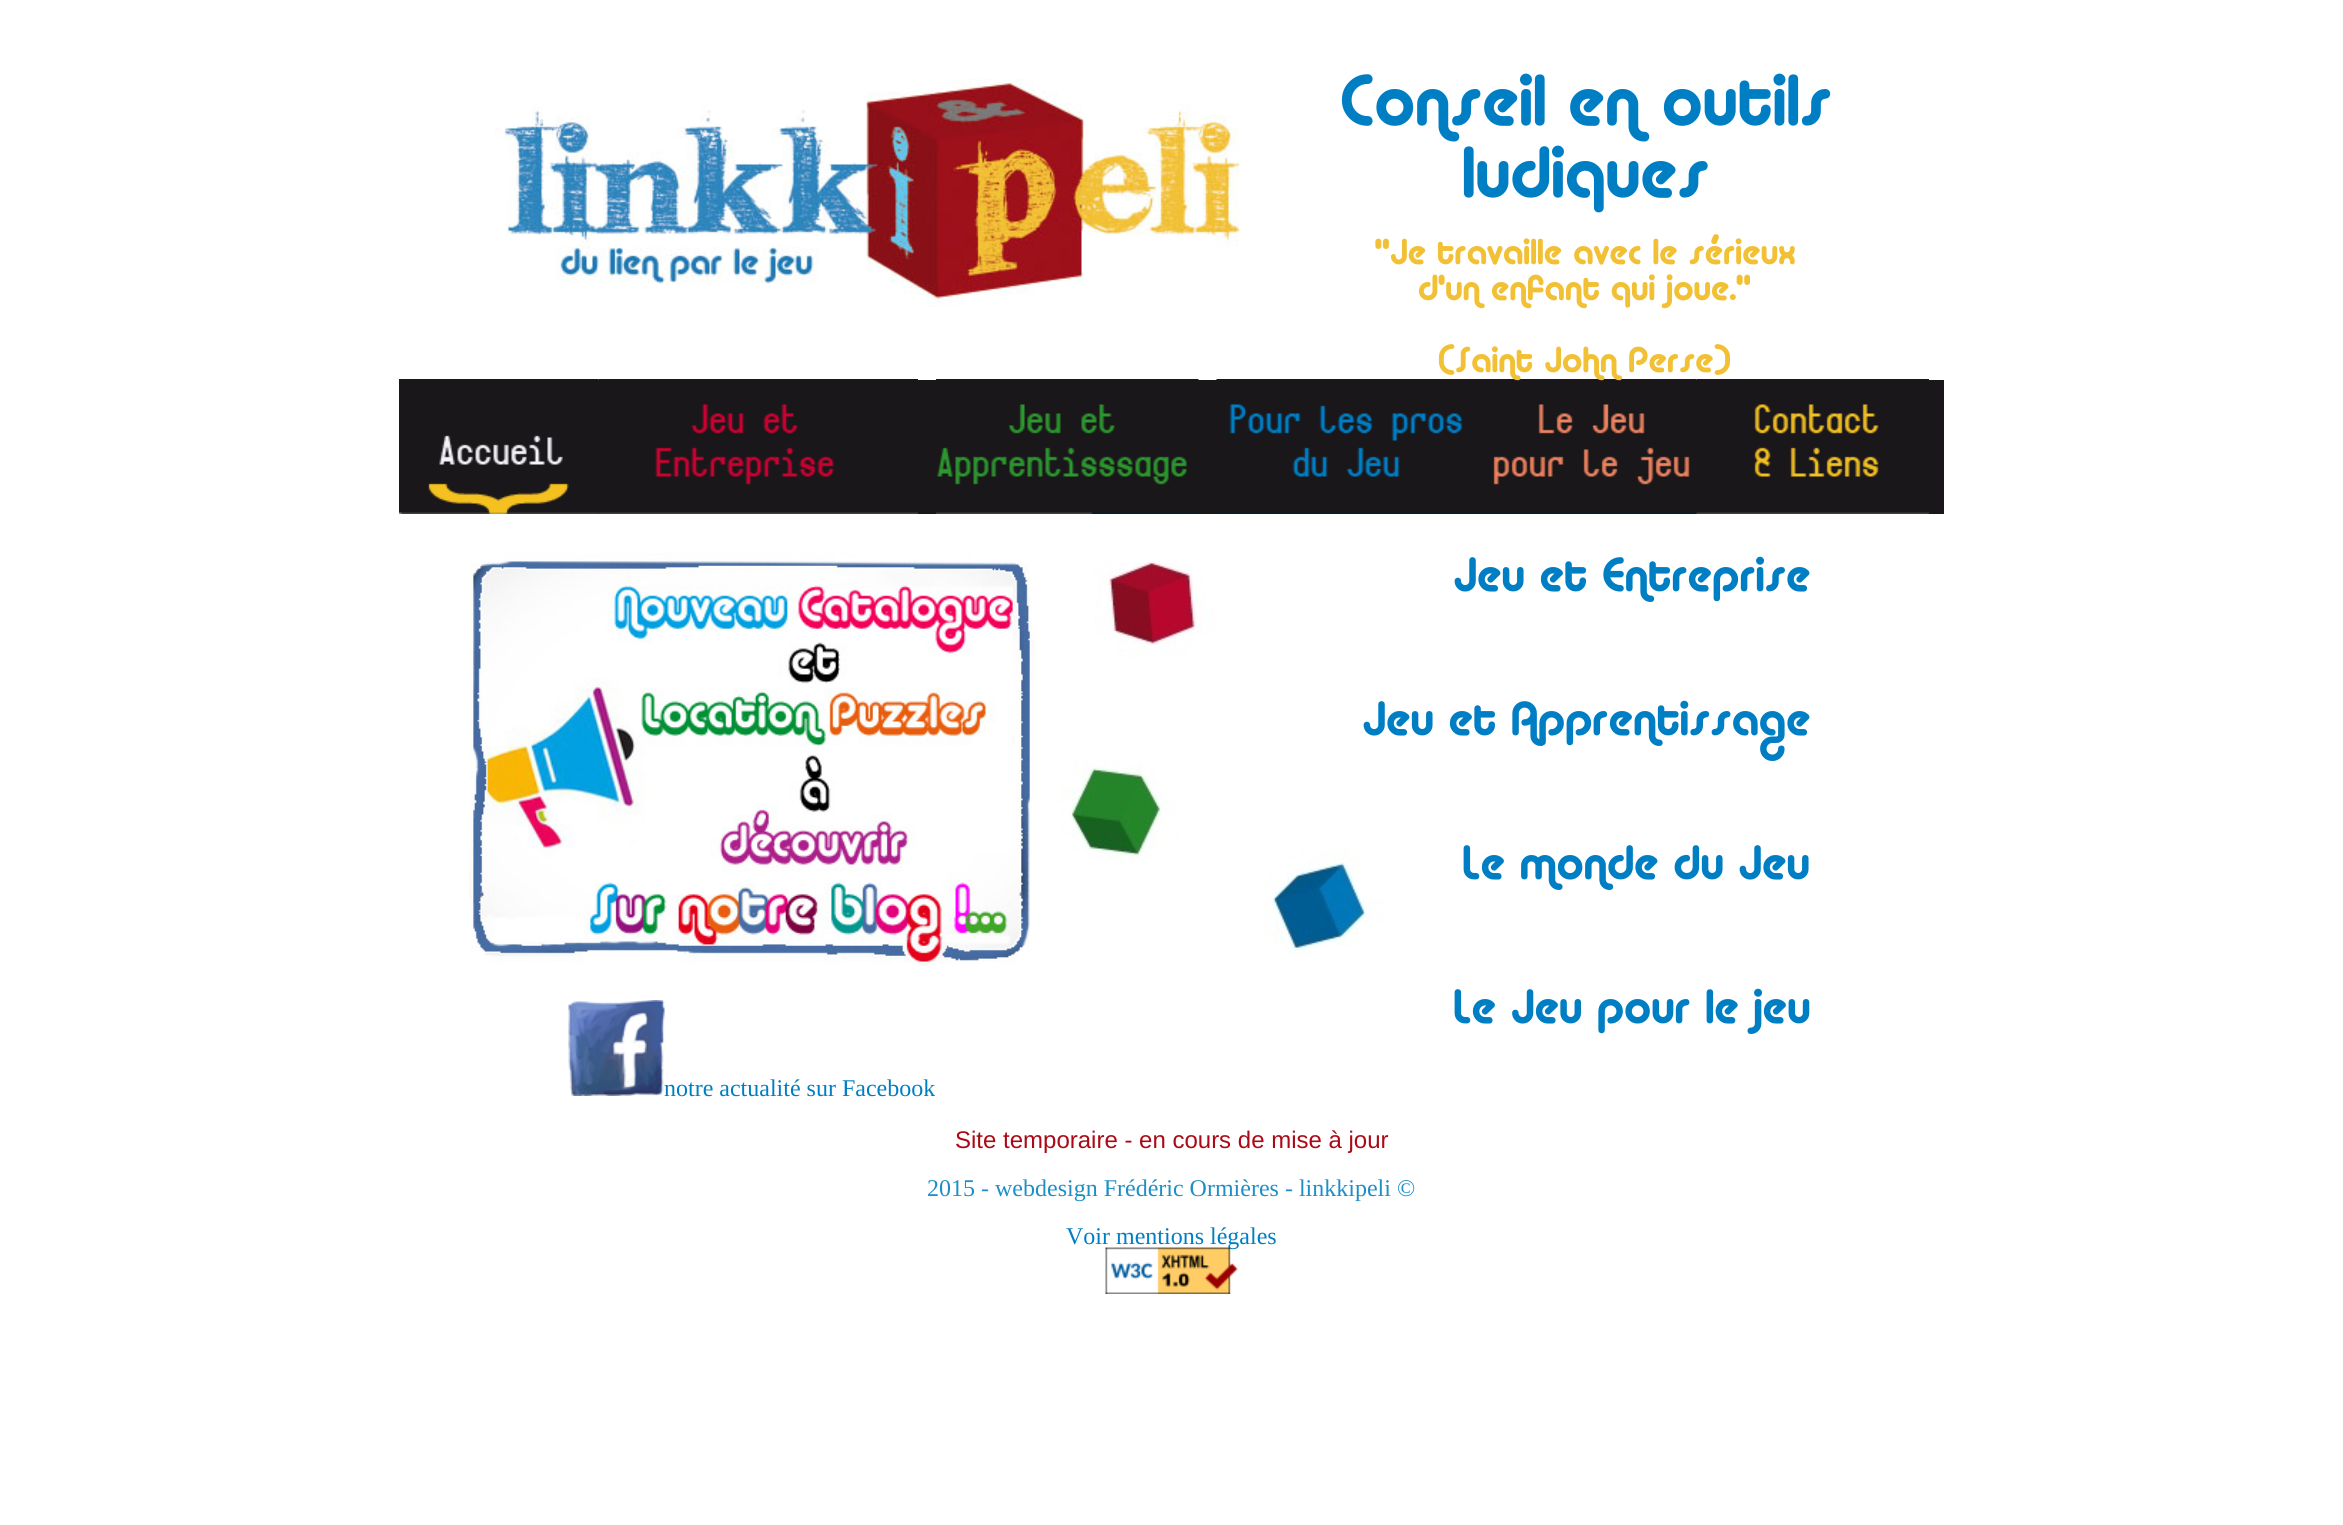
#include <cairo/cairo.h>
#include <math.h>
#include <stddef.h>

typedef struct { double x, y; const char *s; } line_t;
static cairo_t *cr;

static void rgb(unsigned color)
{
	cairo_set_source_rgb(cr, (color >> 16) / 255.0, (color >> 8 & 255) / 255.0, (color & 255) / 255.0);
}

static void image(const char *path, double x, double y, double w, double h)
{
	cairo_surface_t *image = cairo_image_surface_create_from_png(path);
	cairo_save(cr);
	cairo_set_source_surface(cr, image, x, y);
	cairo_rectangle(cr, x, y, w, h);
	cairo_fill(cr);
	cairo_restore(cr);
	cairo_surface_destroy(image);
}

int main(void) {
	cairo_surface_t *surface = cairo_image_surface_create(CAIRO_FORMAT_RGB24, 2343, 1525);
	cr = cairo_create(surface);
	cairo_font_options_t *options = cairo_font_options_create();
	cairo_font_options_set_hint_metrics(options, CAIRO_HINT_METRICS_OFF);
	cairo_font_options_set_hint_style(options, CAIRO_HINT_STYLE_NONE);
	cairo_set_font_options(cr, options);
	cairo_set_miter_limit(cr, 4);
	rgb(0xffffff);
	cairo_paint(cr);
	image("img/1.png", 495, 79, 745, 228);
	rgb(0x1a171b);
	cairo_rectangle(cr, 598, 380, 1346, 134);
	cairo_fill(cr);
	image("img/2.png", 399, 379, 200, 135);
	image("img/3.png", 598, 379, 320, 135);
	image("img/4.png", 936, 379, 263, 135);
	image("img/5.png", 1216, 379, 263, 135);
	image("img/6.png", 1479, 379, 218, 135);
	image("img/7.png", 1696, 379, 233, 135);
	image("img/8.png", 399, 514, 1545, 444);
	image("img/9.png", 469, 552, 566, 414);
	image("img/10.png", 568, 1000, 97, 96);
	cairo_select_font_face(cr, "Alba", CAIRO_FONT_SLANT_NORMAL, CAIRO_FONT_WEIGHT_NORMAL);
	cairo_set_font_size(cr, 72);
	rgb(0x007ec4);
	cairo_move_to(cr, 1338, 125);
	cairo_show_text(cr, "Conseil en outils");
	cairo_move_to(cr, 1460, 197);
	cairo_show_text(cr, "ludiques");
	cairo_set_font_size(cr, 36);
	rgb(0xf2c035);
	{
		static const line_t items[] = {
			{1374, 264, "\"Je travaille avec le sérieux"},
			{1417, 300, "d'un enfant qui joue.\""},
			{1437, 372, "(Saint John Perse)"},
		};
		for (size_t i = 0; i < sizeof items / sizeof *items; i++) {
			cairo_move_to(cr, items[i].x, items[i].y);
			cairo_show_text(cr, items[i].s);
		}
	}
	cairo_set_font_size(cr, 48);
	rgb(0x007ec4);
	{
		static const line_t items[] = {
			{1452, 591, "Jeu et Entreprise"},
			{1361, 735, "Jeu et Apprentissage"},
			{1461, 879, "Le monde du Jeu"},
			{1452, 1023, "Le Jeu pour le jeu"},
		};
		for (size_t i = 0; i < sizeof items / sizeof *items; i++) {
			cairo_move_to(cr, items[i].x, items[i].y);
			cairo_show_text(cr, items[i].s);
		}
	}
	cairo_select_font_face(cr, "Liberation Serif", CAIRO_FONT_SLANT_NORMAL, CAIRO_FONT_WEIGHT_NORMAL);
	cairo_set_font_size(cr, 24);
	cairo_move_to(cr, 664, 1096);
	cairo_show_text(cr, "notre actualité sur Facebook");
	cairo_select_font_face(cr, "Liberation Sans", CAIRO_FONT_SLANT_NORMAL, CAIRO_FONT_WEIGHT_NORMAL);
	rgb(0xaa0a17);
	cairo_move_to(cr, 955, 1148);
	cairo_show_text(cr, "Site temporaire - en cours de mise à jour");
	cairo_select_font_face(cr, "Liberation Serif", CAIRO_FONT_SLANT_NORMAL, CAIRO_FONT_WEIGHT_NORMAL);
	rgb(0x1e8fc6);
	cairo_move_to(cr, 927, 1196);
	cairo_show_text(cr, "2015 - webdesign Frédéric Ormières - linkkipeli ©");
	rgb(0x007ec4);
	cairo_move_to(cr, 1066, 1244);
	cairo_show_text(cr, "Voir mentions légales");
	image("img/11.png", 1105, 1247, 133, 47);
	cairo_surface_write_to_png(surface, "page.png");
	cairo_font_options_destroy(options);
	cairo_destroy(cr);
	cairo_surface_destroy(surface);
	return 0;
}
